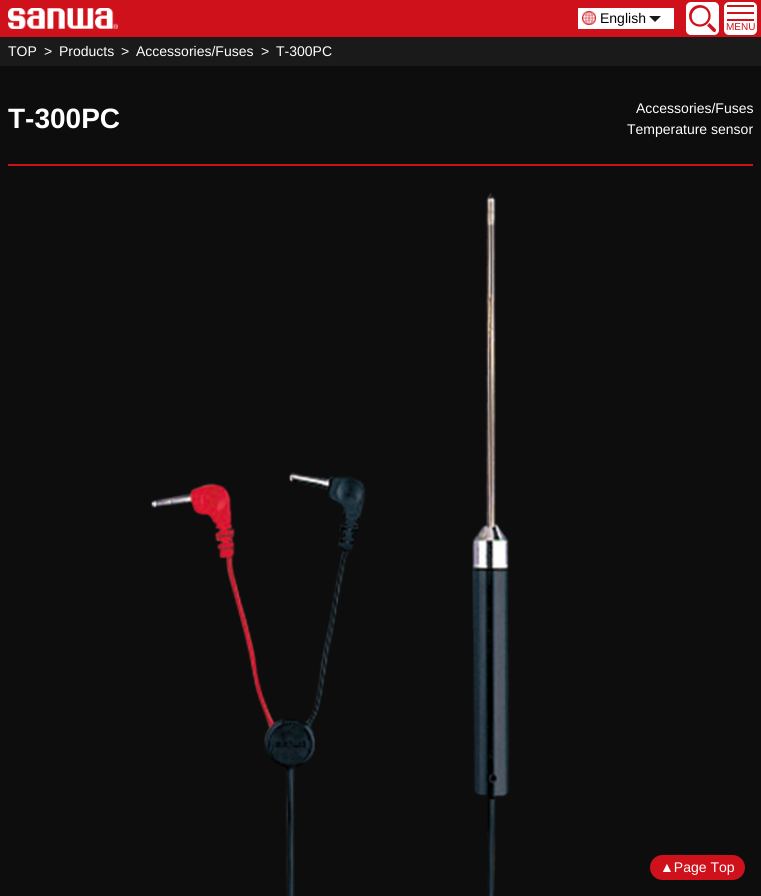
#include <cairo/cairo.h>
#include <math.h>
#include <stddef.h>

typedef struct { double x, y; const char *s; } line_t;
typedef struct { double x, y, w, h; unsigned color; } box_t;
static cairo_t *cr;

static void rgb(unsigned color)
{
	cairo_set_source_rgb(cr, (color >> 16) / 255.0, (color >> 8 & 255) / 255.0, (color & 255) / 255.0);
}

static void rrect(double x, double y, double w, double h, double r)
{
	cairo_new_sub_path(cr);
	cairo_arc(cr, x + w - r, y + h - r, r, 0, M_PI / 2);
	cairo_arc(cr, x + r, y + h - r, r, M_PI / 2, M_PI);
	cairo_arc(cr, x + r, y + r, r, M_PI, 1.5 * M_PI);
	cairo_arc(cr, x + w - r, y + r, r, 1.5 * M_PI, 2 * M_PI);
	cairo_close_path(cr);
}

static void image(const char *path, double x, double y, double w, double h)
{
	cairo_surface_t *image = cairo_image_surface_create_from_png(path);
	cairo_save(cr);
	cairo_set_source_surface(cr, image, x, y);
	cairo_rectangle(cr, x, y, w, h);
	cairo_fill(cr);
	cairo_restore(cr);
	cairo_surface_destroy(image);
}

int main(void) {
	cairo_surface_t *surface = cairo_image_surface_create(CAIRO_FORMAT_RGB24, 761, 896);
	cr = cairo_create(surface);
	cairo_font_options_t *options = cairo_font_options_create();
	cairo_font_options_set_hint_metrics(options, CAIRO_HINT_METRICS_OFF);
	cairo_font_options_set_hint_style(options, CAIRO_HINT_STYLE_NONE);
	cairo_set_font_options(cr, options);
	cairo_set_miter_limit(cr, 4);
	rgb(0x0d0d0d);
	cairo_paint(cr);
	rgb(0xcf111b);
	cairo_rectangle(cr, 0, 0, 761, 37);
	cairo_fill(cr);
	image("img/1.png", 8, 8, 110, 21);
	rgb(0xffffff);
	cairo_rectangle(cr, 578, 8, 96, 21);
	cairo_fill(cr);
	image("img/2.png", 582, 10, 14, 15);
	rgb(0x1a1a1a);
	cairo_new_path(cr);
	cairo_move_to(cr, 649, 16);
	cairo_line_to(cr, 661, 16);
	cairo_line_to(cr, 655, 22);
	cairo_close_path(cr);
	cairo_fill(cr);
	rgb(0xffffff);
	rrect(686, 2, 33, 33, 5);
	cairo_fill(cr);
	image("img/3.png", 689, 5, 27, 27);
	rrect(724, 2, 33, 33, 5);
	cairo_fill(cr);
	{
		static const box_t items[] = {
			{727, 5, 27, 2, 0xcf111b},
			{727, 12, 27, 2, 0xcf111b},
			{727, 19, 27, 2, 0xcf111b},
			{0, 37, 761, 29, 0x1a1a1a},
			{8, 164, 745, 2, 0xcf111b},
		};
		for (size_t i = 0; i < sizeof items / sizeof *items; i++) {
			rgb(items[i].color);
			cairo_rectangle(cr, items[i].x, items[i].y, items[i].w, items[i].h);
			cairo_fill(cr);
		}
	}
	image("img/4.png", 151, 193, 359, 703);
	rrect(650, 855, 95, 25, 12.5);
	cairo_fill(cr);
	cairo_select_font_face(cr, "Liberation Sans", CAIRO_FONT_SLANT_NORMAL, CAIRO_FONT_WEIGHT_NORMAL);
	cairo_set_font_size(cr, 14);
	rgb(0x000000);
	cairo_move_to(cr, 600, 23);
	cairo_show_text(cr, "English");
	cairo_set_font_size(cr, 10);
	rgb(0xcf111b);
	cairo_move_to(cr, 726, 30);
	cairo_show_text(cr, "MENU");
	cairo_set_font_size(cr, 14);
	rgb(0xffffff);
	{
		static const line_t items[] = {
			{8, 56, "TOP"},
			{44, 56, ">"},
			{59, 56, "Products"},
			{121, 56, ">"},
			{136, 56, "Accessories/Fuses"},
			{261, 56, ">"},
			{276, 56, "T-300PC"},
		};
		for (size_t i = 0; i < sizeof items / sizeof *items; i++) {
			cairo_move_to(cr, items[i].x, items[i].y);
			cairo_show_text(cr, items[i].s);
		}
	}
	cairo_select_font_face(cr, "Liberation Sans", CAIRO_FONT_SLANT_NORMAL, CAIRO_FONT_WEIGHT_BOLD);
	cairo_set_font_size(cr, 28);
	cairo_move_to(cr, 8, 128);
	cairo_show_text(cr, "T-300PC");
	cairo_select_font_face(cr, "Liberation Sans", CAIRO_FONT_SLANT_NORMAL, CAIRO_FONT_WEIGHT_NORMAL);
	cairo_set_font_size(cr, 14);
	{
		static const line_t items[] = {
			{636, 113, "Accessories/Fuses"},
			{627, 134, "Temperature sensor"},
			{660, 872, "▲Page Top"},
		};
		for (size_t i = 0; i < sizeof items / sizeof *items; i++) {
			cairo_move_to(cr, items[i].x, items[i].y);
			cairo_show_text(cr, items[i].s);
		}
	}
	cairo_surface_write_to_png(surface, "page.png");
	cairo_font_options_destroy(options);
	cairo_destroy(cr);
	cairo_surface_destroy(surface);
	return 0;
}
